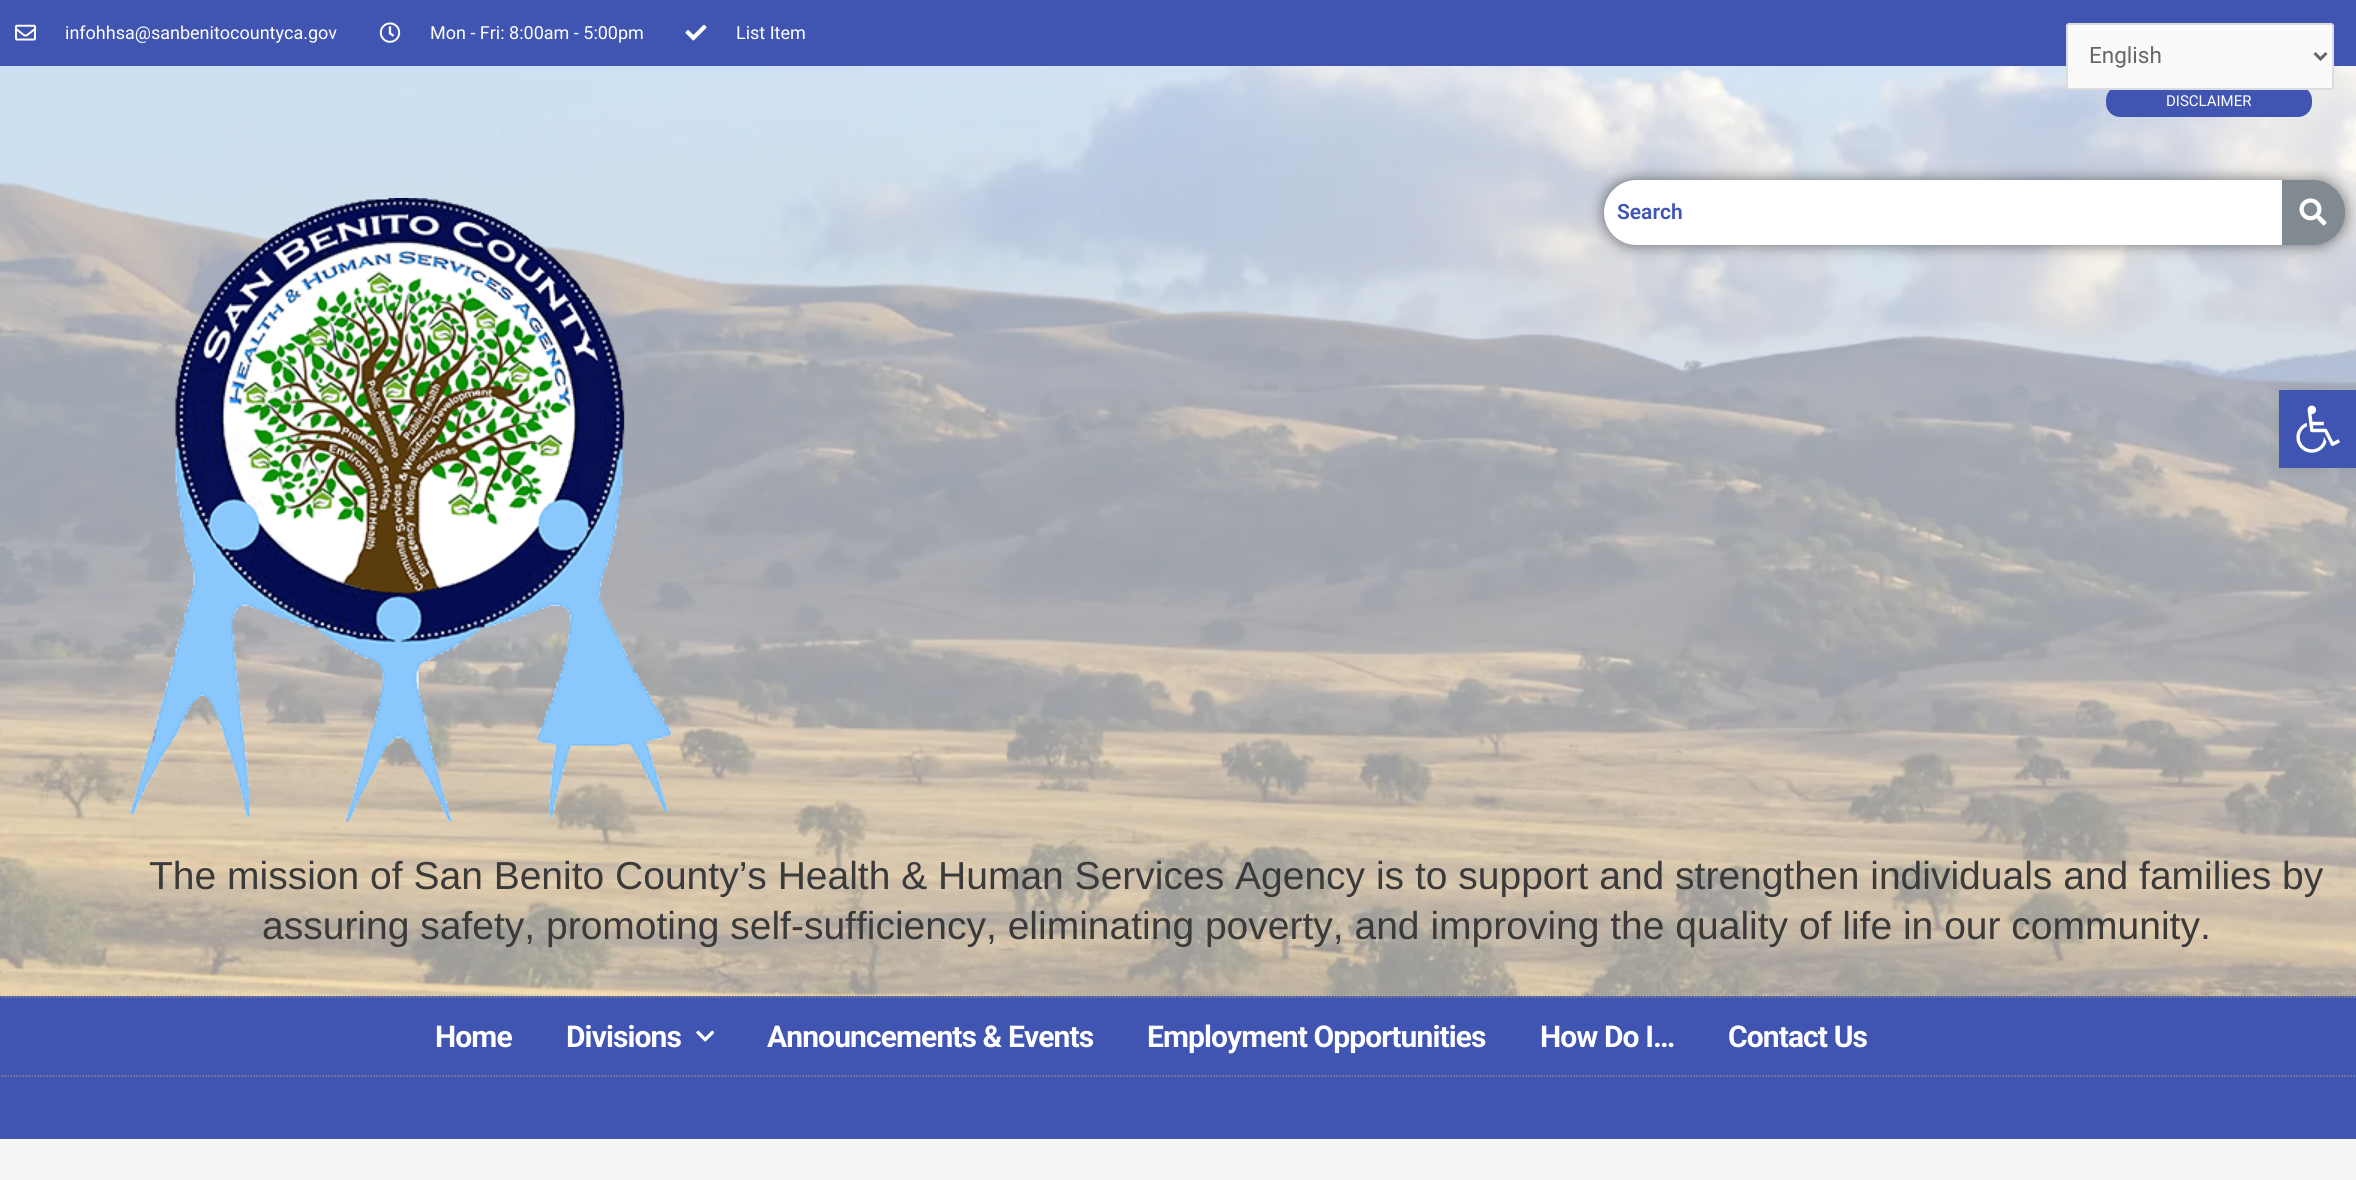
#include <cairo/cairo.h>
#include <math.h>
#include <stddef.h>

typedef struct { double x, y; const char *s; } line_t;
static cairo_t *cr;

static void rgb(unsigned color)
{
	cairo_set_source_rgb(cr, (color >> 16) / 255.0, (color >> 8 & 255) / 255.0, (color & 255) / 255.0);
}

static void tracked(double x, double y, const char *s, double letter, double word)
{
	cairo_move_to(cr, x, y);
	while (*s) {
		char ch[5] = {0};
		int n = 0;
		do ch[n++] = *s++; while ((*s & 0xC0) == 0x80);
		cairo_show_text(cr, ch);
		cairo_rel_move_to(cr, letter + word * (*ch == ' '), 0);
	}
}

static void rrect(double x, double y, double w, double h, double r)
{
	cairo_new_sub_path(cr);
	cairo_arc(cr, x + w - r, y + h - r, r, 0, M_PI / 2);
	cairo_arc(cr, x + r, y + h - r, r, M_PI / 2, M_PI);
	cairo_arc(cr, x + r, y + r, r, M_PI, 1.5 * M_PI);
	cairo_arc(cr, x + w - r, y + r, r, 1.5 * M_PI, 2 * M_PI);
	cairo_close_path(cr);
}

static void soft_shadow(double x, double y, double w, double h, double r, double blur, double alpha)
{
	cairo_push_group_with_content(cr, CAIRO_CONTENT_ALPHA);
	cairo_set_operator(cr, CAIRO_OPERATOR_SOURCE);
	for (int i = 15; i >= -15 && fmin(w, h) + blur * i / 3 > 0; i -= 2) {
		double e = blur * i / 6;
		cairo_set_source_rgba(cr, 0, 0, 0, alpha * erfc((i - 1) / 8.5) / 2);
		rrect(x - e, y - e, w + 2 * e, h + 2 * e, fmax(0, fmin(r + e + blur * .6, fmin(w, h) / 2 + e)));
		cairo_fill(cr);
	}
	cairo_pattern_t *soft = cairo_pop_group(cr);
	cairo_mask(cr, soft);
	cairo_pattern_destroy(soft);
}

static void image(const char *path, double x, double y, double w, double h)
{
	cairo_surface_t *image = cairo_image_surface_create_from_png(path);
	cairo_save(cr);
	cairo_set_source_surface(cr, image, x, y);
	cairo_rectangle(cr, x, y, w, h);
	cairo_fill(cr);
	cairo_restore(cr);
	cairo_surface_destroy(image);
}

int main(void) {
	cairo_surface_t *surface = cairo_image_surface_create(CAIRO_FORMAT_RGB24, 2356, 1180);
	cr = cairo_create(surface);
	cairo_font_options_t *options = cairo_font_options_create();
	cairo_font_options_set_hint_metrics(options, CAIRO_HINT_METRICS_OFF);
	cairo_font_options_set_hint_style(options, CAIRO_HINT_STYLE_NONE);
	cairo_set_font_options(cr, options);
	cairo_set_miter_limit(cr, 4);
	rgb(0xf5f5f5);
	cairo_paint(cr);
	rgb(0x4054b2);
	cairo_rectangle(cr, 0, 0, 2356, 66);
	cairo_fill(cr);
	image("img/1.png", 15, 24, 21, 17);
	image("img/2.png", 379, 22, 22, 21);
	image("img/3.png", 685, 24, 22, 17);
	image("img/4.png", 0, 66, 2356, 930);
	rrect(2106, 86, 206, 31, 14);
	cairo_fill(cr);
	image("img/5.png", 130, 198, 541, 624);
	rgb(0x000000);
	soft_shadow(1604, 180, 741, 65, 32, 7.5, 0.5);
	cairo_save(cr);
	rrect(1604, 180, 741, 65, 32);
	cairo_clip(cr);
	soft_shadow(1604, 180, 678, 65, 0, 7.5, 0.5);
	cairo_restore(cr);
	rgb(0xffffff);
	cairo_new_path(cr);
	cairo_move_to(cr, 1636, 180);
	cairo_line_to(cr, 2282, 180);
	cairo_line_to(cr, 2282, 245);
	cairo_line_to(cr, 1636, 245);
	cairo_curve_to(cr, 1618.5, 245, 1604, 230.5, 1604, 213);
	cairo_line_to(cr, 1604, 212);
	cairo_curve_to(cr, 1604, 194.5, 1618.5, 180, 1636, 180);
	cairo_close_path(cr);
	cairo_fill(cr);
	rgb(0x818a91);
	cairo_new_path(cr);
	cairo_move_to(cr, 2282, 180);
	cairo_line_to(cr, 2313, 180);
	cairo_curve_to(cr, 2330.5, 180, 2345, 194.5, 2345, 212);
	cairo_line_to(cr, 2345, 213);
	cairo_curve_to(cr, 2345, 230.5, 2330.5, 245, 2313, 245);
	cairo_line_to(cr, 2282, 245);
	cairo_close_path(cr);
	cairo_fill(cr);
	image("img/6.png", 2299, 198, 28, 28);
	rgb(0x4054b2);
	cairo_rectangle(cr, 0, 996, 2356, 143);
	cairo_fill(cr);
	cairo_new_path(cr);
	cairo_move_to(cr, -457.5, 997);
	cairo_line_to(cr, 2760, 997);
	rgb(0x8e8e8e);
	cairo_set_line_width(cr, 1.5);
	cairo_set_dash(cr, (double[]){1.5, 1.5}, 2, 0);
	cairo_stroke(cr);
	cairo_new_path(cr);
	cairo_move_to(cr, -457.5, 1076);
	cairo_line_to(cr, 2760, 1076);
	cairo_stroke(cr);
	image("img/7.png", 696, 1030, 19, 12);
	rgb(0xfafafa);
	rrect(2067, 24, 266, 65, 2);
	cairo_fill_preserve(cr);
	rgb(0xdddddd);
	cairo_set_line_width(cr, 2);
	cairo_set_dash(cr, NULL, 0, 0);
	cairo_stroke(cr);
	cairo_new_path(cr);
	cairo_move_to(cr, 2314.5, 53);
	cairo_line_to(cr, 2320.5, 59);
	cairo_line_to(cr, 2326.5, 53);
	rgb(0x666666);
	cairo_set_line_width(cr, 3);
	cairo_stroke(cr);
	rgb(0x000000);
	soft_shadow(2279, 390, 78, 78, 0, 7.5, 0.1);
	rgb(0x4054b2);
	cairo_rectangle(cr, 2279, 390, 77, 78);
	cairo_fill(cr);
	image("img/8.png", 2296, 405, 44, 48);
	cairo_select_font_face(cr, "Roboto", CAIRO_FONT_SLANT_NORMAL, CAIRO_FONT_WEIGHT_NORMAL);
	cairo_set_font_size(cr, 18);
	rgb(0xffffff);
	{
		static const line_t items[] = {
			{65, 39, "infohhsa@sanbenitocountyca.gov"},
			{430, 39, "Mon - Fri: 8:00am - 5:00pm"},
			{736, 39, "List Item"},
		};
		for (size_t i = 0; i < sizeof items / sizeof *items; i++) {
			cairo_move_to(cr, items[i].x, items[i].y);
			cairo_show_text(cr, items[i].s);
		}
	}
	cairo_set_font_size(cr, 15);
	cairo_move_to(cr, 2166, 106);
	cairo_show_text(cr, "DISCLAIMER");
	cairo_select_font_face(cr, "Roboto SemiBold", CAIRO_FONT_SLANT_NORMAL, CAIRO_FONT_WEIGHT_NORMAL);
	cairo_set_font_size(cr, 21);
	rgb(0x4054b2);
	cairo_move_to(cr, 1617, 219);
	cairo_show_text(cr, "Search");
	cairo_select_font_face(cr, "Liberation Sans", CAIRO_FONT_SLANT_NORMAL, CAIRO_FONT_WEIGHT_NORMAL);
	cairo_set_font_size(cr, 39);
	rgb(0x3a3a3a);
	cairo_move_to(cr, 149, 889);
	cairo_show_text(cr, "The mission of San Benito County’s Health & Human Services Agency is to support and strengthen individuals and families by");
	cairo_move_to(cr, 262, 939);
	cairo_show_text(cr, "assuring safety, promoting self-sufficiency, eliminating poverty, and improving the quality of life in our community.");
	cairo_select_font_face(cr, "Roboto", CAIRO_FONT_SLANT_NORMAL, CAIRO_FONT_WEIGHT_BOLD);
	cairo_set_font_size(cr, 30);
	rgb(0xffffff);
	{
		static const line_t items[] = {
			{435, 1047, "Home"},
			{566, 1047, "Divisions"},
			{767, 1047, "Announcements & Events"},
			{1147, 1047, "Employment Opportunities"},
			{1540, 1047, "How Do I…"},
			{1728, 1047, "Contact Us"},
		};
		for (size_t i = 0; i < sizeof items / sizeof *items; i++) {
			tracked(items[i].x, items[i].y, items[i].s, -0.9, 0);
		}
	}
	cairo_select_font_face(cr, "Roboto", CAIRO_FONT_SLANT_NORMAL, CAIRO_FONT_WEIGHT_NORMAL);
	cairo_set_font_size(cr, 22.5);
	rgb(0x666666);
	cairo_move_to(cr, 2089, 63);
	cairo_show_text(cr, "English");
	cairo_surface_write_to_png(surface, "page.png");
	cairo_font_options_destroy(options);
	cairo_destroy(cr);
	cairo_surface_destroy(surface);
	return 0;
}
